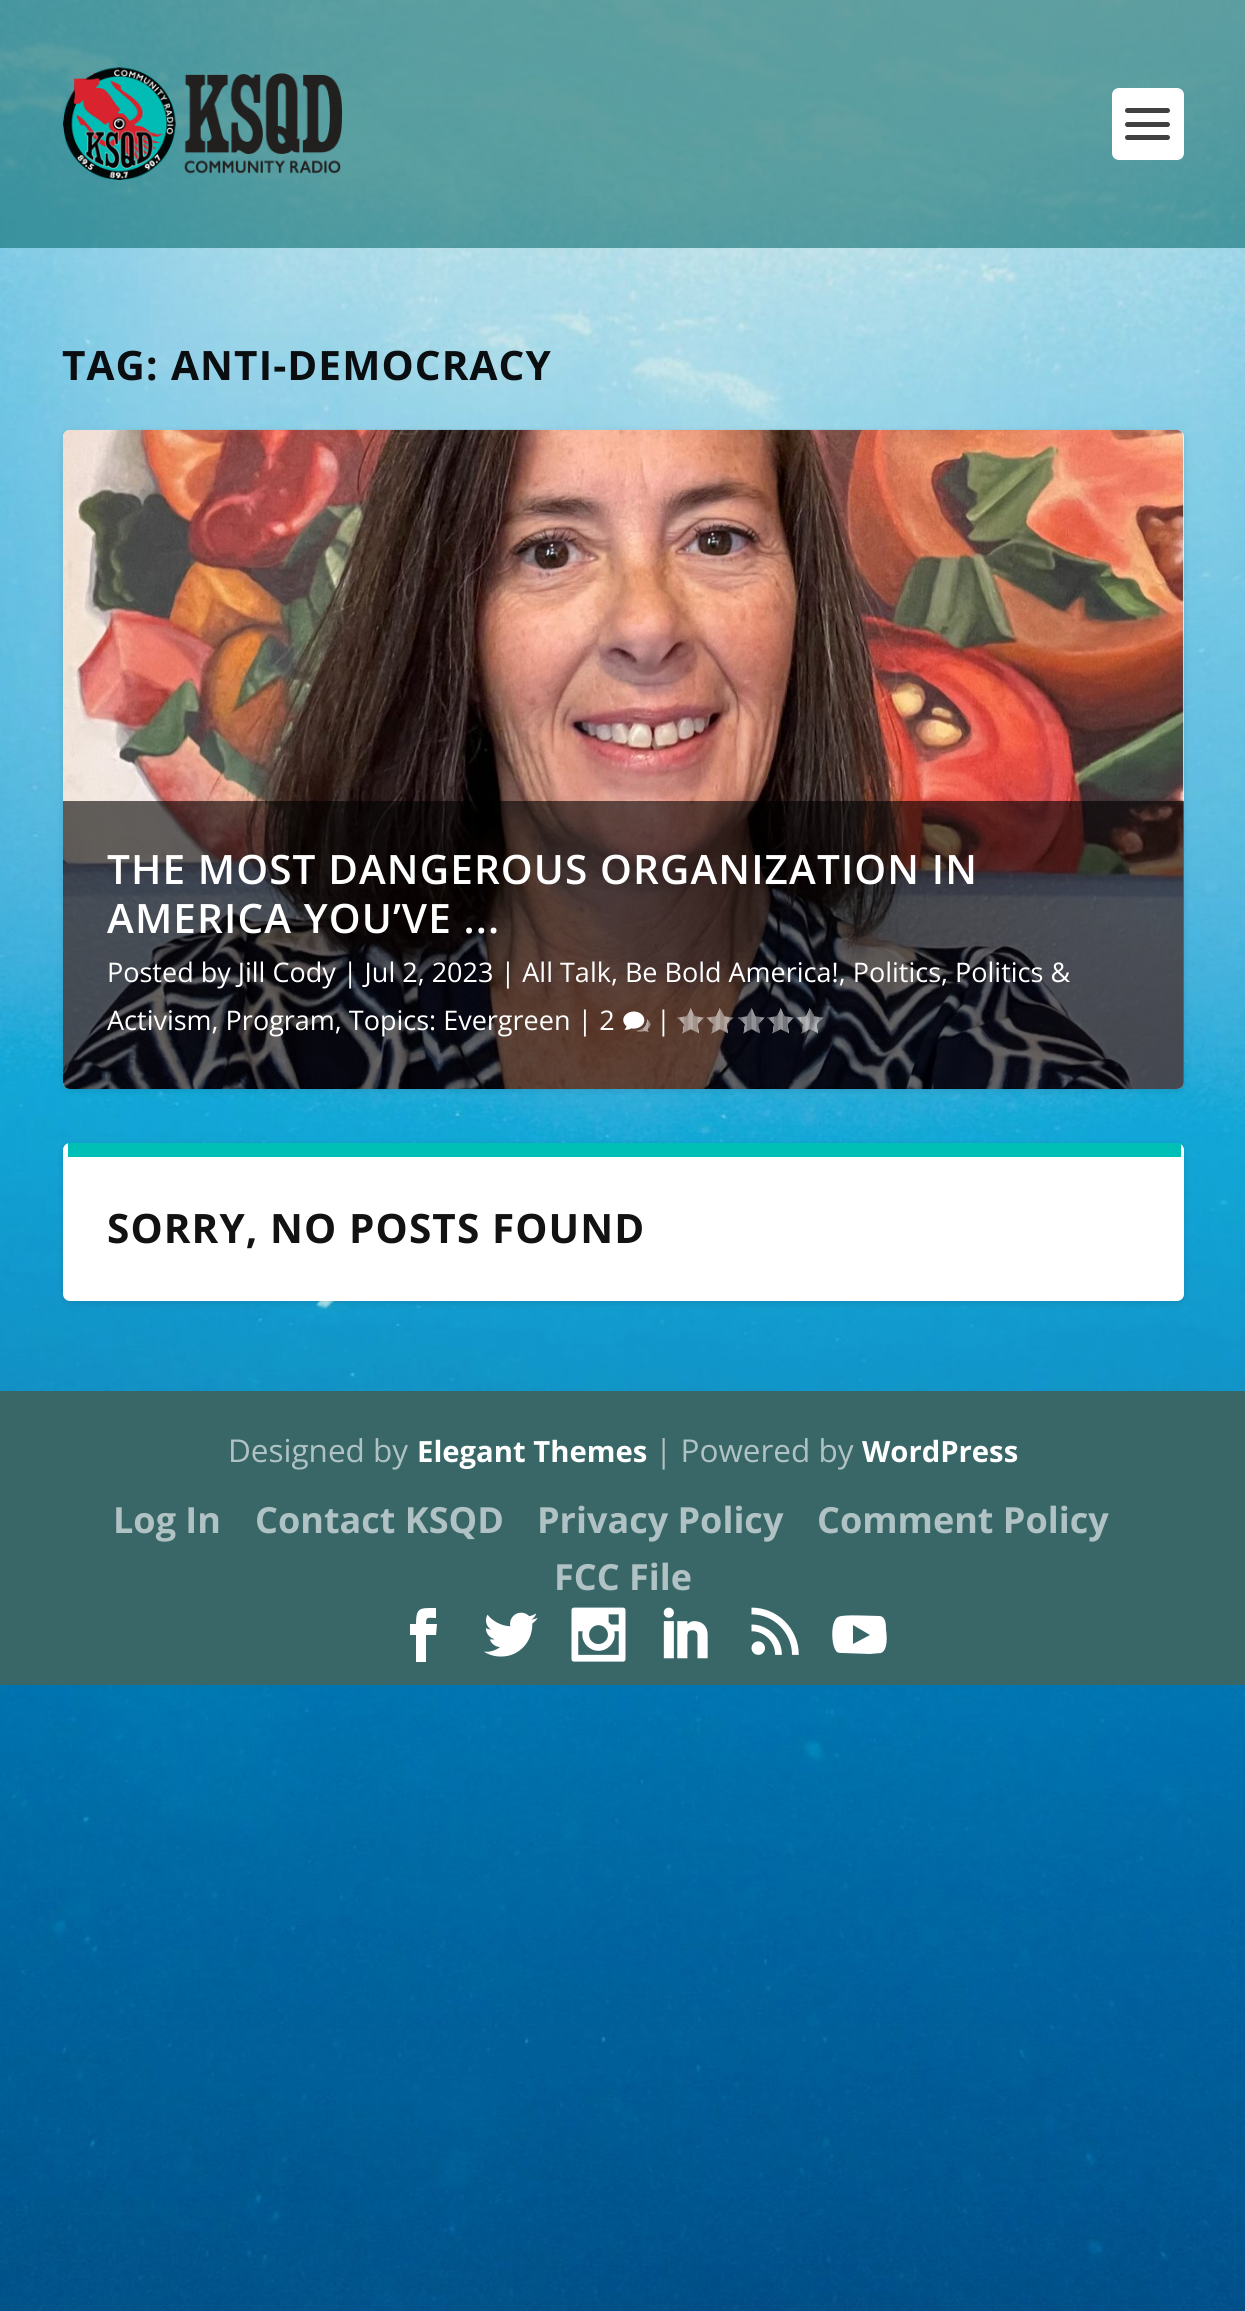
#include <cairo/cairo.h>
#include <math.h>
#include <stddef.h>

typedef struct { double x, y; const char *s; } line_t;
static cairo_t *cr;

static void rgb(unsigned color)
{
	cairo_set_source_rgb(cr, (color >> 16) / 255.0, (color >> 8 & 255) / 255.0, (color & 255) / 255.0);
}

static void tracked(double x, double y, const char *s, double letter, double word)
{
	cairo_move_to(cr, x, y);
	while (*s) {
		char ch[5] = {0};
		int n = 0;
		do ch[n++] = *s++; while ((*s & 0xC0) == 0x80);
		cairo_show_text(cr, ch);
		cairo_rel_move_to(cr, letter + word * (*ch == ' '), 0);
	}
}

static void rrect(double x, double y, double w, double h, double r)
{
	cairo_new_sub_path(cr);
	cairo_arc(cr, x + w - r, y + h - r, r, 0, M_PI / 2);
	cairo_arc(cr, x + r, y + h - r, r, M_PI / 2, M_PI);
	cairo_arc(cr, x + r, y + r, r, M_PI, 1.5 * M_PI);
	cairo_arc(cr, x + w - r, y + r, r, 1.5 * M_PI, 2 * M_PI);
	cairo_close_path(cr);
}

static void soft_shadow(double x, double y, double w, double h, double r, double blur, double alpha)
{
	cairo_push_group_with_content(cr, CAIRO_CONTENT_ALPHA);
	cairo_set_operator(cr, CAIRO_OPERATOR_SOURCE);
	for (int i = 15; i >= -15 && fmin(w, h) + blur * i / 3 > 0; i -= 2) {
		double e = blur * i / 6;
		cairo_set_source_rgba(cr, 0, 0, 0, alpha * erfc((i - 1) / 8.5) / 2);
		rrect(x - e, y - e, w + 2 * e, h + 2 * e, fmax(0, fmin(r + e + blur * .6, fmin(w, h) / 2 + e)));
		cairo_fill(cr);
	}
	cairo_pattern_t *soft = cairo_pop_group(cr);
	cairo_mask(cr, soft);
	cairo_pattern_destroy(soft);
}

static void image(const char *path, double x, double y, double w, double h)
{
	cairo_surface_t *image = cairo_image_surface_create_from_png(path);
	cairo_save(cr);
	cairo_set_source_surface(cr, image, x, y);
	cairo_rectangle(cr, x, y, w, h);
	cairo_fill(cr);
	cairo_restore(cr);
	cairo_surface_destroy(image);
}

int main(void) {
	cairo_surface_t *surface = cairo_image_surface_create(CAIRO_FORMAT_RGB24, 1245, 2311);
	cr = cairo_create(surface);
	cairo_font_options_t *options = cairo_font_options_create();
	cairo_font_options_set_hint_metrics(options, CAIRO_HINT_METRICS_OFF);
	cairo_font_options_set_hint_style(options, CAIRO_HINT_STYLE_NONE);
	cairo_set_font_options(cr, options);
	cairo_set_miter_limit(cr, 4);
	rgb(0xffffff);
	cairo_paint(cr);
	image("img/1.png", 0, 0, 1245, 2311);
	cairo_set_source_rgba(cr, 1, 1, 1, 0.07);
	cairo_rectangle(cr, 0, 0, 1245, 1391);
	cairo_fill(cr);
	cairo_set_source_rgba(cr, 0, 0.4, 0.408, 0.56);
	cairo_rectangle(cr, 0, 0, 1245, 248);
	cairo_fill(cr);
	image("img/2.png", 63, 67, 279, 113);
	rgb(0xffffff);
	rrect(1112, 88, 72, 72, 7);
	cairo_fill(cr);
	rgb(0x404040);
	rrect(1125, 108, 45, 5, 2.5);
	cairo_fill(cr);
	rrect(1125, 122, 45, 5, 2.5);
	cairo_fill(cr);
	rrect(1125, 135, 45, 5, 2.5);
	cairo_fill(cr);
	rgb(0x000000);
	soft_shadow(63, 432, 1121, 659, 7, 3.5, 0.1);
	rgb(0xffffff);
	rrect(63, 430, 1121, 659, 7);
	cairo_fill(cr);
	image("img/3.png", 63, 429, 1121, 660);
	cairo_set_source_rgba(cr, 0, 0, 0, 0.6);
	cairo_new_path(cr);
	cairo_move_to(cr, 63, 801);
	cairo_line_to(cr, 1184, 801);
	cairo_line_to(cr, 1184, 1082);
	cairo_curve_to(cr, 1184, 1086, 1181, 1089, 1177, 1089);
	cairo_line_to(cr, 70, 1089);
	cairo_curve_to(cr, 66, 1089, 63, 1086, 63, 1082);
	cairo_close_path(cr);
	cairo_fill(cr);
	image("img/4.png", 623, 1011, 28, 21);
	image("img/5.png", 677, 1008, 28, 26);
	image("img/6.png", 706, 1008, 28, 26);
	image("img/7.png", 738, 1008, 27, 26);
	image("img/8.png", 767, 1008, 28, 26);
	image("img/9.png", 796, 1008, 28, 26);
	rgb(0x000000);
	soft_shadow(63, 1145, 1121, 158, 7, 3.5, 0.1);
	rgb(0xffffff);
	rrect(63, 1143, 1121, 158, 7);
	cairo_fill(cr);
	rgb(0x00c0b5);
	cairo_rectangle(cr, 68, 1143, 1113, 14);
	cairo_fill(cr);
	rgb(0x396768);
	cairo_rectangle(cr, 0, 1391, 1245, 294);
	cairo_fill(cr);
	rgb(0xffffff);
	cairo_new_path(cr);
	cairo_move_to(cr, 426, 1662);
	cairo_line_to(cr, 416, 1662);
	cairo_line_to(cr, 416, 1635);
	cairo_line_to(cr, 410, 1635);
	cairo_line_to(cr, 410, 1624);
	cairo_line_to(cr, 416, 1624);
	cairo_curve_to(cr, 416, 1607, 420, 1608, 436, 1608);
	cairo_line_to(cr, 436, 1618);
	cairo_curve_to(cr, 428, 1618, 426, 1616, 426, 1624);
	cairo_line_to(cr, 437, 1624);
	cairo_line_to(cr, 436, 1635);
	cairo_line_to(cr, 426, 1635);
	cairo_close_path(cr);
	cairo_fill(cr);
	image("img/10.png", 484, 1612, 54, 45);
	image("img/11.png", 571, 1607, 55, 55);
	image("img/12.png", 663, 1607, 45, 52);
	image("img/13.png", 751, 1607, 48, 48);
	cairo_new_path(cr);
	cairo_move_to(cr, 879, 1616);
	cairo_curve_to(cr, 872, 1616, 843, 1614, 838, 1617);
	cairo_curve_to(cr, 830, 1621, 831, 1647, 837, 1652);
	cairo_curve_to(cr, 838, 1653, 841, 1653, 843, 1653);
	cairo_line_to(cr, 870, 1654);
	cairo_line_to(cr, 881, 1653);
	cairo_curve_to(cr, 888, 1650, 887, 1636, 886, 1630);
	cairo_curve_to(cr, 886, 1625, 886, 1616, 879, 1616);
	cairo_close_path(cr);
	cairo_move_to(cr, 853, 1644);
	cairo_line_to(cr, 853, 1625);
	cairo_line_to(cr, 870, 1635);
	cairo_close_path(cr);
	cairo_fill(cr);
	cairo_select_font_face(cr, "Open Sans", CAIRO_FONT_SLANT_NORMAL, CAIRO_FONT_WEIGHT_BOLD);
	cairo_set_font_size(cr, 40.5);
	rgb(0x0a0e10);
	tracked(62, 380, "TAG:", 1.1, 0);
	tracked(171, 380, "ANTI-DEMOCRACY", 1.1, 0);
	cairo_select_font_face(cr, "Open Sans SemiBold", CAIRO_FONT_SLANT_NORMAL, CAIRO_FONT_WEIGHT_NORMAL);
	rgb(0xffffff);
	tracked(107, 884, "THE MOST DANGEROUS ORGANIZATION IN", 1.1, 0);
	tracked(107, 933, "AMERICA YOU’VE ...", 1.1, 0);
	cairo_select_font_face(cr, "Open Sans", CAIRO_FONT_SLANT_NORMAL, CAIRO_FONT_WEIGHT_NORMAL);
	cairo_set_font_size(cr, 27);
	{
		static const line_t items[] = {
			{107, 982, "Posted by Jill Cody | Jul 2, 2023 | All Talk, Be Bold America!, Politics, Politics &"},
			{107, 1030, "Activism, Program, Topics: Evergreen | 2"},
			{656, 1030, "|"},
		};
		for (size_t i = 0; i < sizeof items / sizeof *items; i++) {
			cairo_move_to(cr, items[i].x, items[i].y);
			cairo_show_text(cr, items[i].s);
		}
	}
	cairo_select_font_face(cr, "Open Sans", CAIRO_FONT_SLANT_NORMAL, CAIRO_FONT_WEIGHT_BOLD);
	cairo_set_font_size(cr, 40.5);
	rgb(0x121212);
	tracked(107, 1243, "SORRY, NO POSTS FOUND", 1.1, 0);
	cairo_select_font_face(cr, "Open Sans", CAIRO_FONT_SLANT_NORMAL, CAIRO_FONT_WEIGHT_NORMAL);
	cairo_set_font_size(cr, 31.5);
	rgb(0xb0c2c3);
	cairo_move_to(cr, 228, 1462);
	cairo_show_text(cr, "Designed by");
	cairo_select_font_face(cr, "Open Sans", CAIRO_FONT_SLANT_NORMAL, CAIRO_FONT_WEIGHT_BOLD);
	cairo_set_font_size(cr, 29.25);
	rgb(0xffffff);
	cairo_move_to(cr, 417, 1462);
	cairo_show_text(cr, "Elegant Themes");
	cairo_select_font_face(cr, "Open Sans", CAIRO_FONT_SLANT_NORMAL, CAIRO_FONT_WEIGHT_NORMAL);
	cairo_set_font_size(cr, 31.5);
	rgb(0xb0c2c3);
	cairo_move_to(cr, 655, 1462);
	cairo_show_text(cr, "| Powered by");
	cairo_select_font_face(cr, "Open Sans", CAIRO_FONT_SLANT_NORMAL, CAIRO_FONT_WEIGHT_BOLD);
	cairo_set_font_size(cr, 29.25);
	rgb(0xffffff);
	cairo_move_to(cr, 862, 1462);
	cairo_show_text(cr, "WordPress");
	cairo_set_font_size(cr, 36);
	rgb(0xb0c2c3);
	{
		static const line_t items[] = {
			{113, 1533, "Log In"},
			{255, 1533, "Contact KSQD"},
			{537, 1533, "Privacy Policy"},
			{817, 1533, "Comment Policy"},
			{554, 1590, "FCC File"},
		};
		for (size_t i = 0; i < sizeof items / sizeof *items; i++) {
			cairo_move_to(cr, items[i].x, items[i].y);
			cairo_show_text(cr, items[i].s);
		}
	}
	cairo_surface_write_to_png(surface, "page.png");
	cairo_font_options_destroy(options);
	cairo_destroy(cr);
	cairo_surface_destroy(surface);
	return 0;
}
